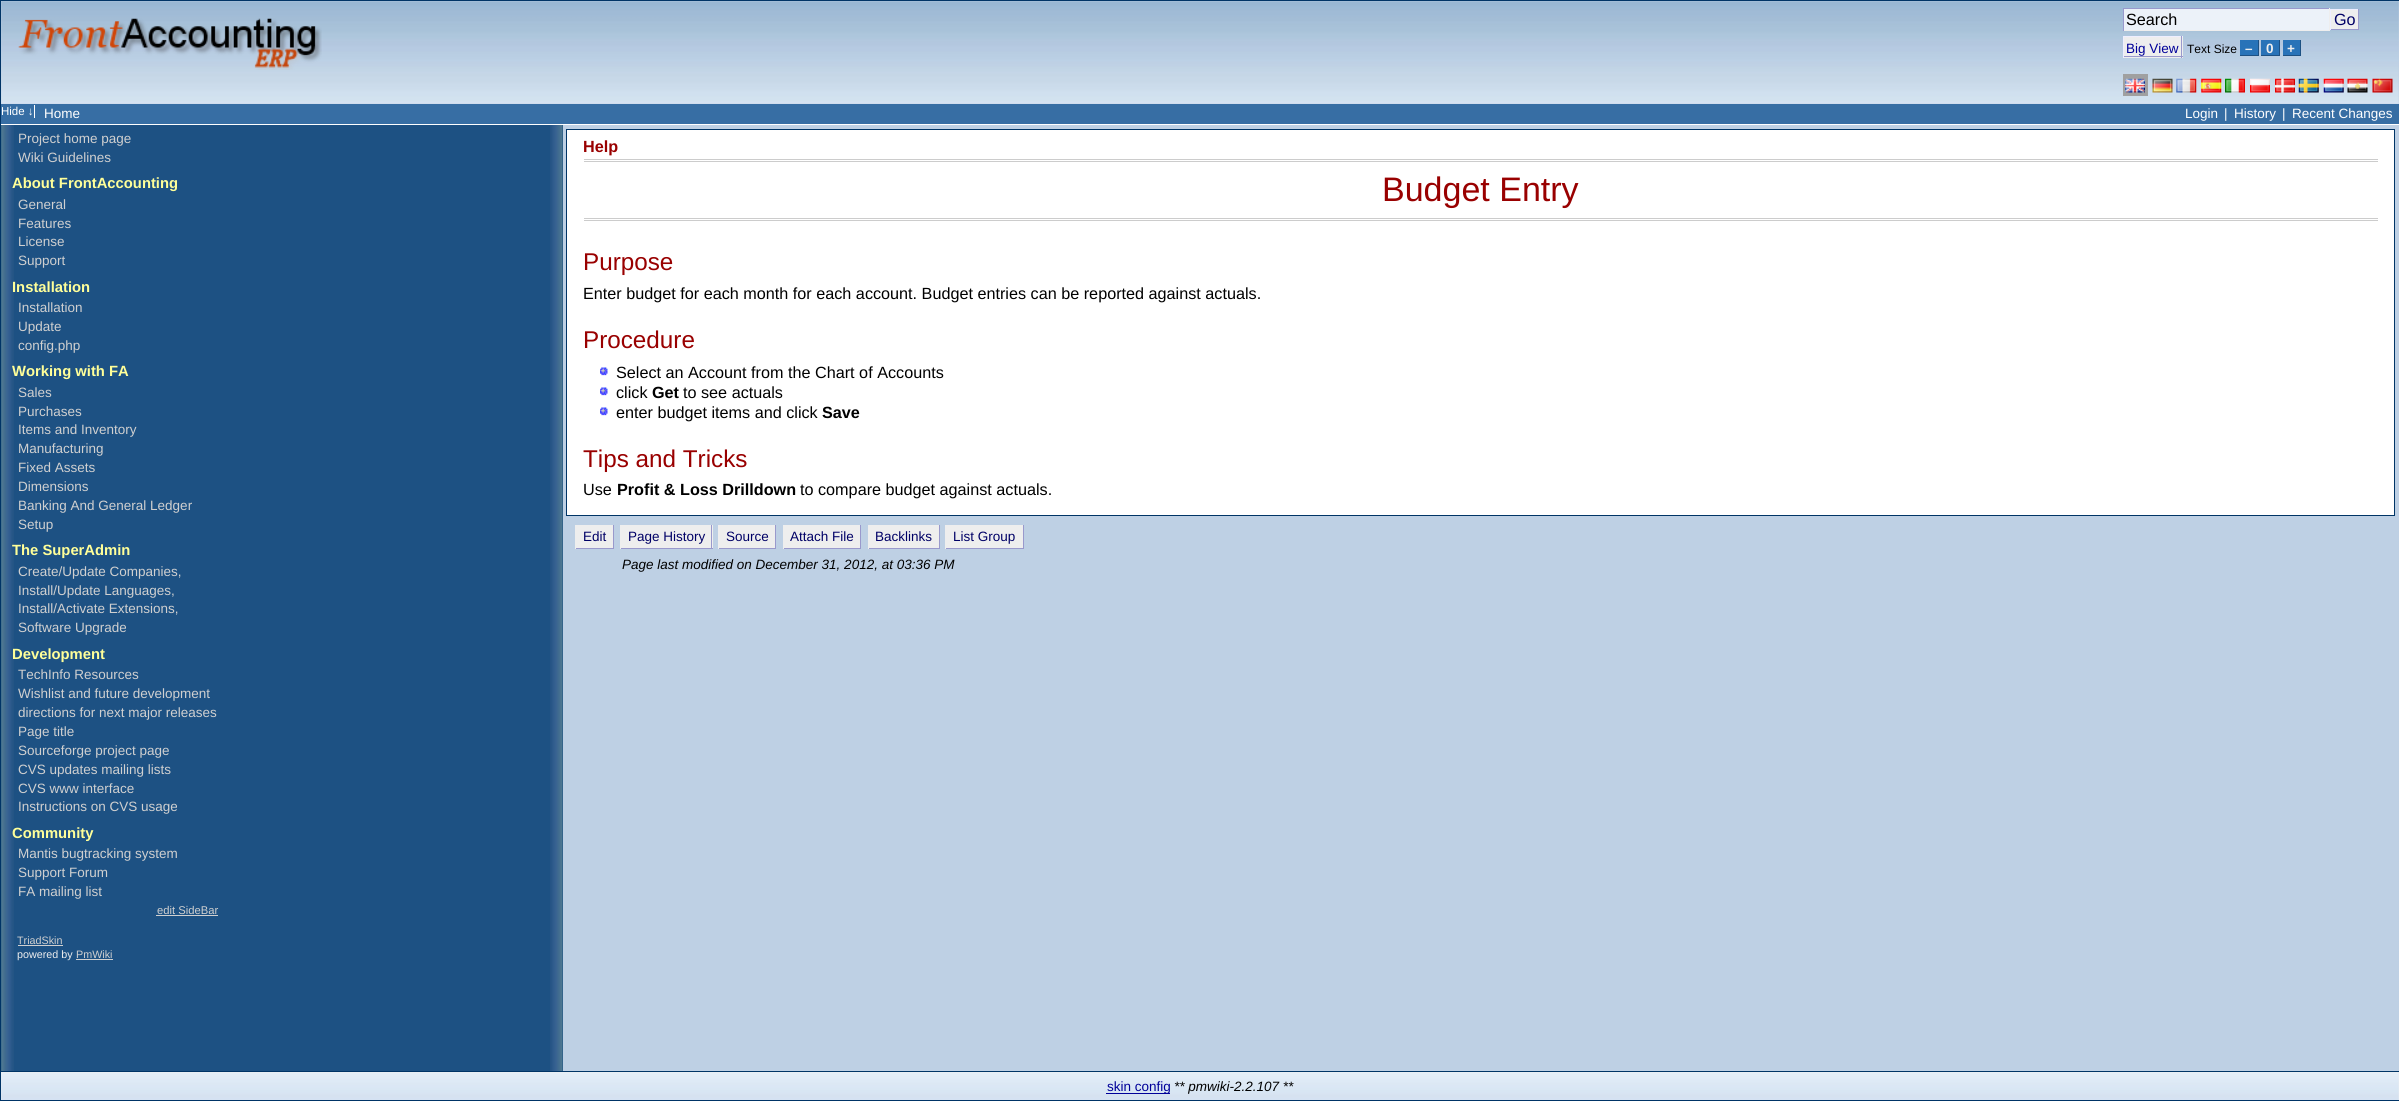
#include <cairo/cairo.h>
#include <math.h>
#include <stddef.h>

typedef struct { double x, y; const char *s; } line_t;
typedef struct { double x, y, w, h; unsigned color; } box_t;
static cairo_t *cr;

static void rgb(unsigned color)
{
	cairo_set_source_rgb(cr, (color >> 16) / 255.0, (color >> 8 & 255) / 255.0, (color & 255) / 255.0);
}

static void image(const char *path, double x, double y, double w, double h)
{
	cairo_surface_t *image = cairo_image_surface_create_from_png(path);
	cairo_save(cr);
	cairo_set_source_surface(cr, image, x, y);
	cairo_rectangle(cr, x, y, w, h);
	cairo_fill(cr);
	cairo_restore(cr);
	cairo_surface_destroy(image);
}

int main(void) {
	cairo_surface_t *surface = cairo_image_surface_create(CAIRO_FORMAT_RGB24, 2399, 1101);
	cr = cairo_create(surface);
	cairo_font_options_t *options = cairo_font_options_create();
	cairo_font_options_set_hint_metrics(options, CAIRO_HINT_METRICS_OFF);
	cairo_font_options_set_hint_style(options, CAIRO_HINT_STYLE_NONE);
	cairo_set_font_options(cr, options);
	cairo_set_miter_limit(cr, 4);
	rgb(0x1d5183);
	cairo_paint(cr);
	image("img/1.png", 1, 125, 13, 946);
	cairo_rectangle(cr, 0.5, 0.5, 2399, 1100);
	rgb(0x003466);
	cairo_set_line_width(cr, 1);
	cairo_stroke(cr);
	rgb(0xbed0e4);
	cairo_rectangle(cr, 1, 1, 2398, 103);
	cairo_fill(cr);
	image("img/2.png", 1, 1, 2398, 103);
	image("img/3.png", 18, 18, 304, 52);
	{
		static const box_t items[] = {
			{2124, 9, 205, 21, 0xecf2f9},
			{2123, 8, 207, 1, 0x9999cc},
			{2329, 8, 1, 23, 0xeeeeee},
			{2123, 30, 207, 1, 0xeeeeee},
			{2123, 8, 1, 23, 0x9999cc},
			{2331, 10, 27, 19, 0xeeeeee},
			{2330, 9, 29, 1, 0xeeeeff},
			{2358, 9, 1, 21, 0x9999cc},
			{2330, 29, 29, 1, 0x9999cc},
			{2330, 9, 1, 21, 0xeeeeff},
			{2124, 37, 59, 21, 0xeeeeee},
			{2123, 36, 60, 1, 0xeeeeff},
			{2181, 36, 1, 22, 0x9999cc},
			{2123, 56, 60, 1, 0x9999cc},
			{2123, 36, 1, 22, 0xeeeeff},
			{2240, 40, 18, 15, 0x2873b8},
			{2258, 40, 1, 16, 0x1d5183},
			{2240, 55, 19, 1, 0x1d5183},
			{2261, 40, 18, 15, 0x2873b8},
			{2279, 40, 1, 16, 0x1d5183},
			{2261, 55, 19, 1, 0x1d5183},
			{2283, 40, 17, 15, 0x2873b8},
			{2300, 40, 1, 16, 0x1d5183},
			{2283, 55, 18, 1, 0x1d5183},
			{2123, 74, 25, 22, 0xa0a0a0},
		};
		for (size_t i = 0; i < sizeof items / sizeof *items; i++) {
			rgb(items[i].color);
			cairo_rectangle(cr, items[i].x, items[i].y, items[i].w, items[i].h);
			cairo_fill(cr);
		}
	}
	image("img/4.png", 2125, 78, 20, 15);
	image("img/5.png", 2152, 78, 21, 15);
	image("img/6.png", 2176, 78, 21, 15);
	image("img/7.png", 2201, 78, 21, 15);
	image("img/8.png", 2225, 78, 20, 15);
	image("img/9.png", 2250, 78, 20, 15);
	image("img/10.png", 2275, 78, 20, 15);
	image("img/11.png", 2298, 78, 21, 15);
	image("img/12.png", 2323, 78, 21, 15);
	image("img/13.png", 2347, 78, 21, 15);
	image("img/14.png", 2372, 78, 21, 15);
	{
		static const box_t items[] = {
			{1, 104, 2398, 20, 0x376ea4},
			{1, 124, 2398, 1, 0xffffff},
			{34, 105, 1, 13, 0xffffff},
		};
		for (size_t i = 0; i < sizeof items / sizeof *items; i++) {
			rgb(items[i].color);
			cairo_rectangle(cr, items[i].x, items[i].y, items[i].w, items[i].h);
			cairo_fill(cr);
		}
	}
	image("img/15.png", 550, 125, 13, 946);
	{
		static const box_t items[] = {
			{156, 915, 62, 1, 0xd0d0d0},
			{18, 945, 45, 1, 0xd0d0d0},
			{76, 959, 37, 1, 0xd0d0d0},
			{563, 125, 1836, 946, 0xbed0e4},
		};
		for (size_t i = 0; i < sizeof items / sizeof *items; i++) {
			rgb(items[i].color);
			cairo_rectangle(cr, items[i].x, items[i].y, items[i].w, items[i].h);
			cairo_fill(cr);
		}
	}
	rgb(0xffffff);
	cairo_rectangle(cr, 566.5, 129.5, 1828, 386);
	cairo_fill_preserve(cr);
	rgb(0x003466);
	cairo_stroke(cr);
	{
		static const box_t items[] = {
			{584, 159, 1794, 1, 0xcccccc},
			{584, 161, 1794, 1, 0xcccccc},
			{584, 218, 1794, 1, 0xcccccc},
			{584, 220, 1794, 1, 0xcccccc},
		};
		for (size_t i = 0; i < sizeof items / sizeof *items; i++) {
			rgb(items[i].color);
			cairo_rectangle(cr, items[i].x, items[i].y, items[i].w, items[i].h);
			cairo_fill(cr);
		}
	}
	image("img/16.png", 600, 367, 8, 9);
	image("img/16.png", 600, 387, 8, 9);
	image("img/16.png", 600, 407, 8, 9);
	{
		static const box_t items[] = {
			{576, 525, 37, 23, 0xeeeeee},
			{613, 525, 1, 24, 0x9999cc},
			{575, 548, 39, 1, 0x9999cc},
			{575, 525, 1, 24, 0xeeeeee},
			{621, 525, 92, 23, 0xeeeeee},
			{711, 525, 1, 24, 0x9999cc},
			{620, 548, 93, 1, 0x9999cc},
			{620, 525, 1, 24, 0xeeeeee},
			{719, 525, 56, 23, 0xeeeeee},
			{775, 525, 1, 24, 0x9999cc},
			{718, 548, 58, 1, 0x9999cc},
			{718, 525, 1, 24, 0xeeeeee},
			{784, 525, 76, 23, 0xeeeeee},
			{860, 525, 1, 24, 0x9999cc},
			{783, 548, 78, 1, 0x9999cc},
			{783, 525, 1, 24, 0xeeeeee},
			{869, 525, 70, 23, 0xeeeeee},
			{939, 525, 1, 24, 0x9999cc},
			{868, 548, 72, 1, 0x9999cc},
			{868, 525, 1, 24, 0xeeeeee},
			{946, 525, 77, 23, 0xeeeeee},
			{1023, 525, 1, 24, 0x9999cc},
			{945, 548, 79, 1, 0x9999cc},
			{945, 525, 1, 24, 0xeeeeee},
			{1, 1072, 2398, 28, 0xeeeeee},
		};
		for (size_t i = 0; i < sizeof items / sizeof *items; i++) {
			rgb(items[i].color);
			cairo_rectangle(cr, items[i].x, items[i].y, items[i].w, items[i].h);
			cairo_fill(cr);
		}
	}
	image("img/17.png", 1, 1072, 2398, 28);
	rgb(0x003466);
	cairo_rectangle(cr, 1, 1071, 2398, 1);
	cairo_fill(cr);
	rgb(0x000099);
	cairo_rectangle(cr, 1106, 1093, 64, 1);
	cairo_fill(cr);
	cairo_select_font_face(cr, "Liberation Sans", CAIRO_FONT_SLANT_NORMAL, CAIRO_FONT_WEIGHT_NORMAL);
	cairo_set_font_size(cr, 16.2);
	rgb(0x000000);
	cairo_move_to(cr, 2126, 25);
	cairo_show_text(cr, "Search");
	rgb(0x000066);
	cairo_move_to(cr, 2334, 25);
	cairo_show_text(cr, "Go");
	cairo_set_font_size(cr, 13.5);
	rgb(0x000099);
	cairo_move_to(cr, 2126, 53);
	cairo_show_text(cr, "Big View");
	cairo_set_font_size(cr, 12);
	rgb(0x000000);
	cairo_move_to(cr, 2187, 53);
	cairo_show_text(cr, "Text Size");
	cairo_select_font_face(cr, "Liberation Sans", CAIRO_FONT_SLANT_NORMAL, CAIRO_FONT_WEIGHT_BOLD);
	cairo_set_font_size(cr, 13.5);
	rgb(0xeeeeee);
	{
		static const line_t items[] = {
			{2245, 53, "–"},
			{2266, 53, "0"},
			{2287, 53, "+"},
		};
		for (size_t i = 0; i < sizeof items / sizeof *items; i++) {
			cairo_move_to(cr, items[i].x, items[i].y);
			cairo_show_text(cr, items[i].s);
		}
	}
	cairo_select_font_face(cr, "Liberation Sans", CAIRO_FONT_SLANT_NORMAL, CAIRO_FONT_WEIGHT_NORMAL);
	cairo_set_font_size(cr, 11.5);
	rgb(0xffffff);
	cairo_move_to(cr, 1, 115);
	cairo_show_text(cr, "Hide ↓");
	cairo_set_font_size(cr, 13.5);
	{
		static const line_t items[] = {
			{44, 118, "Home"},
			{2185, 118, "Login"},
			{2224, 118, "|"},
			{2234, 118, "History"},
			{2282, 118, "|"},
			{2292, 118, "Recent Changes"},
		};
		for (size_t i = 0; i < sizeof items / sizeof *items; i++) {
			cairo_move_to(cr, items[i].x, items[i].y);
			cairo_show_text(cr, items[i].s);
		}
	}
	rgb(0xd0d0d0);
	cairo_move_to(cr, 18, 143);
	cairo_show_text(cr, "Project home page");
	cairo_move_to(cr, 18, 162);
	cairo_show_text(cr, "Wiki Guidelines");
	cairo_select_font_face(cr, "Liberation Sans", CAIRO_FONT_SLANT_NORMAL, CAIRO_FONT_WEIGHT_BOLD);
	cairo_set_font_size(cr, 14.8);
	rgb(0xffff99);
	cairo_move_to(cr, 12, 188);
	cairo_show_text(cr, "About FrontAccounting");
	cairo_select_font_face(cr, "Liberation Sans", CAIRO_FONT_SLANT_NORMAL, CAIRO_FONT_WEIGHT_NORMAL);
	cairo_set_font_size(cr, 13.5);
	rgb(0xd0d0d0);
	{
		static const line_t items[] = {
			{18, 209, "General"},
			{18, 228, "Features"},
			{18, 246, "License"},
			{18, 265, "Support"},
		};
		for (size_t i = 0; i < sizeof items / sizeof *items; i++) {
			cairo_move_to(cr, items[i].x, items[i].y);
			cairo_show_text(cr, items[i].s);
		}
	}
	cairo_select_font_face(cr, "Liberation Sans", CAIRO_FONT_SLANT_NORMAL, CAIRO_FONT_WEIGHT_BOLD);
	cairo_set_font_size(cr, 14.8);
	rgb(0xffff99);
	cairo_move_to(cr, 12, 292);
	cairo_show_text(cr, "Installation");
	cairo_select_font_face(cr, "Liberation Sans", CAIRO_FONT_SLANT_NORMAL, CAIRO_FONT_WEIGHT_NORMAL);
	cairo_set_font_size(cr, 13.5);
	rgb(0xd0d0d0);
	{
		static const line_t items[] = {
			{18, 312, "Installation"},
			{18, 331, "Update"},
			{18, 350, "config.php"},
		};
		for (size_t i = 0; i < sizeof items / sizeof *items; i++) {
			cairo_move_to(cr, items[i].x, items[i].y);
			cairo_show_text(cr, items[i].s);
		}
	}
	cairo_select_font_face(cr, "Liberation Sans", CAIRO_FONT_SLANT_NORMAL, CAIRO_FONT_WEIGHT_BOLD);
	cairo_set_font_size(cr, 14.8);
	rgb(0xffff99);
	cairo_move_to(cr, 12, 376);
	cairo_show_text(cr, "Working with FA");
	cairo_select_font_face(cr, "Liberation Sans", CAIRO_FONT_SLANT_NORMAL, CAIRO_FONT_WEIGHT_NORMAL);
	cairo_set_font_size(cr, 13.5);
	rgb(0xd0d0d0);
	{
		static const line_t items[] = {
			{18, 397, "Sales"},
			{18, 416, "Purchases"},
			{18, 434, "Items and Inventory"},
			{18, 453, "Manufacturing"},
			{18, 472, "Fixed Assets"},
			{18, 491, "Dimensions"},
			{18, 510, "Banking And General Ledger"},
			{18, 529, "Setup"},
		};
		for (size_t i = 0; i < sizeof items / sizeof *items; i++) {
			cairo_move_to(cr, items[i].x, items[i].y);
			cairo_show_text(cr, items[i].s);
		}
	}
	cairo_select_font_face(cr, "Liberation Sans", CAIRO_FONT_SLANT_NORMAL, CAIRO_FONT_WEIGHT_BOLD);
	cairo_set_font_size(cr, 14.8);
	rgb(0xffff99);
	cairo_move_to(cr, 12, 555);
	cairo_show_text(cr, "The SuperAdmin");
	cairo_select_font_face(cr, "Liberation Sans", CAIRO_FONT_SLANT_NORMAL, CAIRO_FONT_WEIGHT_NORMAL);
	cairo_set_font_size(cr, 13.5);
	rgb(0xd0d0d0);
	{
		static const line_t items[] = {
			{18, 576, "Create/Update Companies,"},
			{18, 595, "Install/Update Languages,"},
			{18, 613, "Install/Activate Extensions,"},
			{18, 632, "Software Upgrade"},
		};
		for (size_t i = 0; i < sizeof items / sizeof *items; i++) {
			cairo_move_to(cr, items[i].x, items[i].y);
			cairo_show_text(cr, items[i].s);
		}
	}
	cairo_select_font_face(cr, "Liberation Sans", CAIRO_FONT_SLANT_NORMAL, CAIRO_FONT_WEIGHT_BOLD);
	cairo_set_font_size(cr, 14.8);
	rgb(0xffff99);
	cairo_move_to(cr, 12, 659);
	cairo_show_text(cr, "Development");
	cairo_select_font_face(cr, "Liberation Sans", CAIRO_FONT_SLANT_NORMAL, CAIRO_FONT_WEIGHT_NORMAL);
	cairo_set_font_size(cr, 13.5);
	rgb(0xd0d0d0);
	{
		static const line_t items[] = {
			{18, 679, "TechInfo Resources"},
			{18, 698, "Wishlist and future development"},
			{18, 717, "directions for next major releases"},
			{18, 736, "Page title"},
			{18, 755, "Sourceforge project page"},
			{18, 774, "CVS updates mailing lists"},
			{18, 793, "CVS www interface"},
			{18, 811, "Instructions on CVS usage"},
		};
		for (size_t i = 0; i < sizeof items / sizeof *items; i++) {
			cairo_move_to(cr, items[i].x, items[i].y);
			cairo_show_text(cr, items[i].s);
		}
	}
	cairo_select_font_face(cr, "Liberation Sans", CAIRO_FONT_SLANT_NORMAL, CAIRO_FONT_WEIGHT_BOLD);
	cairo_set_font_size(cr, 14.8);
	rgb(0xffff99);
	cairo_move_to(cr, 12, 838);
	cairo_show_text(cr, "Community");
	cairo_select_font_face(cr, "Liberation Sans", CAIRO_FONT_SLANT_NORMAL, CAIRO_FONT_WEIGHT_NORMAL);
	cairo_set_font_size(cr, 13.5);
	rgb(0xd0d0d0);
	{
		static const line_t items[] = {
			{18, 858, "Mantis bugtracking system"},
			{18, 877, "Support Forum"},
			{18, 896, "FA mailing list"},
		};
		for (size_t i = 0; i < sizeof items / sizeof *items; i++) {
			cairo_move_to(cr, items[i].x, items[i].y);
			cairo_show_text(cr, items[i].s);
		}
	}
	cairo_set_font_size(cr, 11.25);
	cairo_move_to(cr, 157, 914);
	cairo_show_text(cr, "edit SideBar");
	cairo_set_font_size(cr, 10.75);
	cairo_move_to(cr, 17, 944);
	cairo_show_text(cr, "TriadSkin");
	rgb(0xeeeeee);
	cairo_move_to(cr, 17, 958);
	cairo_show_text(cr, "powered by");
	rgb(0xd0d0d0);
	cairo_move_to(cr, 76, 958);
	cairo_show_text(cr, "PmWiki");
	cairo_select_font_face(cr, "Liberation Sans", CAIRO_FONT_SLANT_NORMAL, CAIRO_FONT_WEIGHT_BOLD);
	cairo_set_font_size(cr, 16.2);
	rgb(0x990000);
	cairo_move_to(cr, 583, 152);
	cairo_show_text(cr, "Help");
	cairo_select_font_face(cr, "Liberation Sans", CAIRO_FONT_SLANT_NORMAL, CAIRO_FONT_WEIGHT_NORMAL);
	cairo_set_font_size(cr, 34);
	cairo_move_to(cr, 1382, 201);
	cairo_show_text(cr, "Budget Entry");
	cairo_set_font_size(cr, 24.25);
	cairo_move_to(cr, 583, 270);
	cairo_show_text(cr, "Purpose");
	cairo_set_font_size(cr, 16.2);
	rgb(0x000000);
	cairo_move_to(cr, 583, 299);
	cairo_show_text(cr, "Enter budget for each month for each account. Budget entries can be reported against actuals.");
	cairo_set_font_size(cr, 24.25);
	rgb(0x990000);
	cairo_move_to(cr, 583, 348);
	cairo_show_text(cr, "Procedure");
	cairo_set_font_size(cr, 16.2);
	rgb(0x000000);
	cairo_move_to(cr, 616, 378);
	cairo_show_text(cr, "Select an Account from the Chart of Accounts");
	cairo_move_to(cr, 616, 398);
	cairo_show_text(cr, "click");
	cairo_select_font_face(cr, "Liberation Sans", CAIRO_FONT_SLANT_NORMAL, CAIRO_FONT_WEIGHT_BOLD);
	cairo_move_to(cr, 652, 398);
	cairo_show_text(cr, "Get");
	cairo_select_font_face(cr, "Liberation Sans", CAIRO_FONT_SLANT_NORMAL, CAIRO_FONT_WEIGHT_NORMAL);
	cairo_move_to(cr, 683, 398);
	cairo_show_text(cr, "to see actuals");
	cairo_move_to(cr, 616, 418);
	cairo_show_text(cr, "enter budget items and click");
	cairo_select_font_face(cr, "Liberation Sans", CAIRO_FONT_SLANT_NORMAL, CAIRO_FONT_WEIGHT_BOLD);
	cairo_move_to(cr, 822, 418);
	cairo_show_text(cr, "Save");
	cairo_select_font_face(cr, "Liberation Sans", CAIRO_FONT_SLANT_NORMAL, CAIRO_FONT_WEIGHT_NORMAL);
	cairo_set_font_size(cr, 24.25);
	rgb(0x990000);
	cairo_move_to(cr, 583, 467);
	cairo_show_text(cr, "Tips and Tricks");
	cairo_set_font_size(cr, 16.2);
	rgb(0x000000);
	cairo_move_to(cr, 583, 495);
	cairo_show_text(cr, "Use");
	cairo_select_font_face(cr, "Liberation Sans", CAIRO_FONT_SLANT_NORMAL, CAIRO_FONT_WEIGHT_BOLD);
	cairo_move_to(cr, 617, 495);
	cairo_show_text(cr, "Profit & Loss Drilldown");
	cairo_select_font_face(cr, "Liberation Sans", CAIRO_FONT_SLANT_NORMAL, CAIRO_FONT_WEIGHT_NORMAL);
	cairo_move_to(cr, 800, 495);
	cairo_show_text(cr, "to compare budget against actuals.");
	cairo_set_font_size(cr, 13.5);
	rgb(0x000066);
	{
		static const line_t items[] = {
			{583, 541, "Edit"},
			{628, 541, "Page History"},
			{726, 541, "Source"},
			{790, 541, "Attach File"},
			{875, 541, "Backlinks"},
			{953, 541, "List Group"},
		};
		for (size_t i = 0; i < sizeof items / sizeof *items; i++) {
			cairo_move_to(cr, items[i].x, items[i].y);
			cairo_show_text(cr, items[i].s);
		}
	}
	cairo_select_font_face(cr, "Liberation Sans", CAIRO_FONT_SLANT_ITALIC, CAIRO_FONT_WEIGHT_NORMAL);
	rgb(0x000000);
	cairo_move_to(cr, 622, 569);
	cairo_show_text(cr, "Page last modified on December 31, 2012, at 03:36 PM");
	cairo_select_font_face(cr, "Liberation Sans", CAIRO_FONT_SLANT_NORMAL, CAIRO_FONT_WEIGHT_NORMAL);
	rgb(0x000099);
	cairo_move_to(cr, 1107, 1091);
	cairo_show_text(cr, "skin config");
	cairo_select_font_face(cr, "Liberation Sans", CAIRO_FONT_SLANT_ITALIC, CAIRO_FONT_WEIGHT_NORMAL);
	rgb(0x000000);
	cairo_move_to(cr, 1174, 1091);
	cairo_show_text(cr, "** pmwiki-2.2.107 **");
	cairo_surface_write_to_png(surface, "page.png");
	cairo_font_options_destroy(options);
	cairo_destroy(cr);
	cairo_surface_destroy(surface);
	return 0;
}
